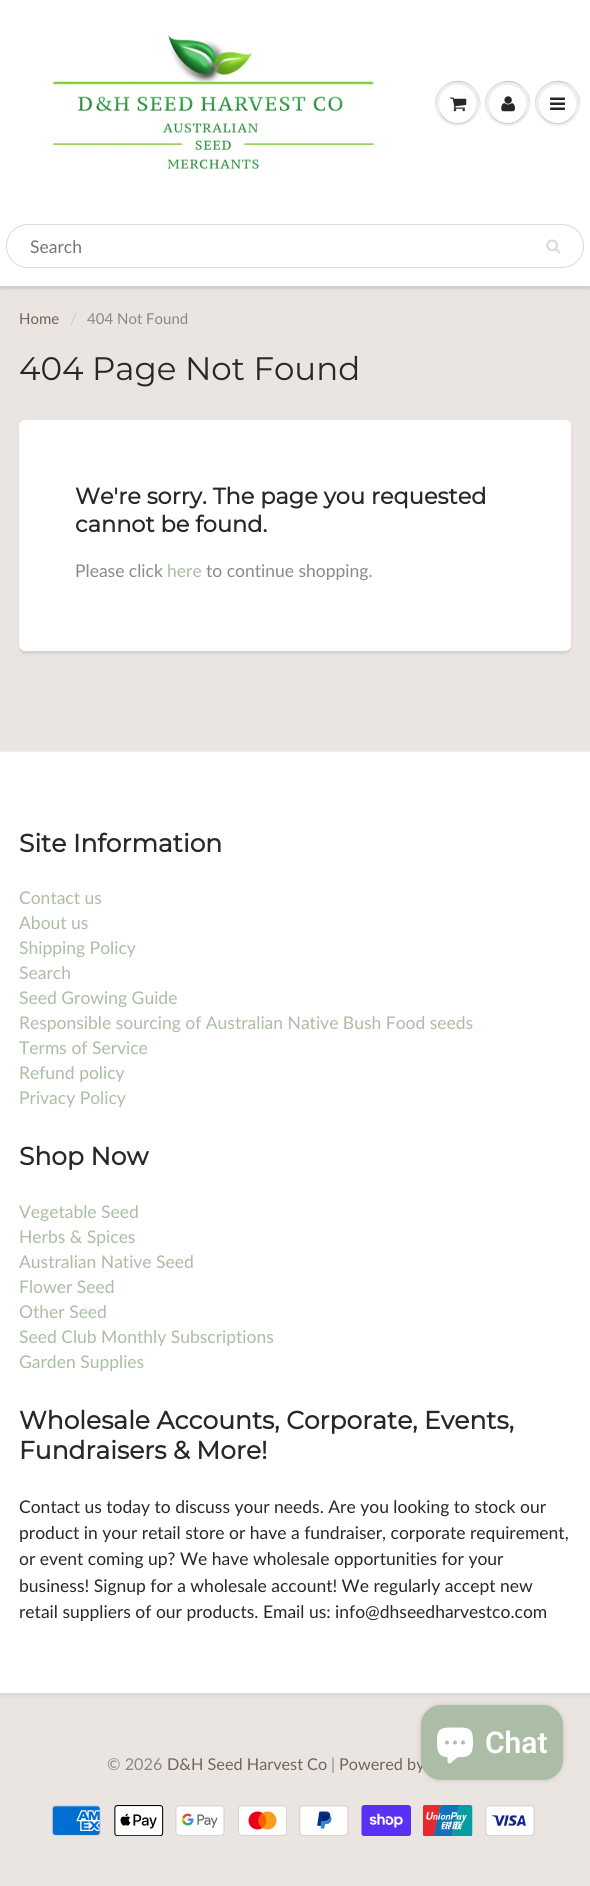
#include <cairo/cairo.h>
#include <math.h>
#include <stddef.h>

typedef struct { double x, y; const char *s; } line_t;
static cairo_t *cr;

static void rgb(unsigned color)
{
	cairo_set_source_rgb(cr, (color >> 16) / 255.0, (color >> 8 & 255) / 255.0, (color & 255) / 255.0);
}

static void rrect(double x, double y, double w, double h, double r)
{
	cairo_new_sub_path(cr);
	cairo_arc(cr, x + w - r, y + h - r, r, 0, M_PI / 2);
	cairo_arc(cr, x + r, y + h - r, r, M_PI / 2, M_PI);
	cairo_arc(cr, x + r, y + r, r, M_PI, 1.5 * M_PI);
	cairo_arc(cr, x + w - r, y + r, r, 1.5 * M_PI, 2 * M_PI);
	cairo_close_path(cr);
}

static void soft_shadow(double x, double y, double w, double h, double r, double blur, double alpha)
{
	cairo_push_group_with_content(cr, CAIRO_CONTENT_ALPHA);
	cairo_set_operator(cr, CAIRO_OPERATOR_SOURCE);
	for (int i = 15; i >= -15 && fmin(w, h) + blur * i / 3 > 0; i -= 2) {
		double e = blur * i / 6;
		cairo_set_source_rgba(cr, 0, 0, 0, alpha * erfc((i - 1) / 8.5) / 2);
		rrect(x - e, y - e, w + 2 * e, h + 2 * e, fmax(0, fmin(r + e + blur * .6, fmin(w, h) / 2 + e)));
		cairo_fill(cr);
	}
	cairo_pattern_t *soft = cairo_pop_group(cr);
	cairo_mask(cr, soft);
	cairo_pattern_destroy(soft);
}

static void image(const char *path, double x, double y, double w, double h)
{
	cairo_surface_t *image = cairo_image_surface_create_from_png(path);
	cairo_save(cr);
	cairo_set_source_surface(cr, image, x, y);
	cairo_rectangle(cr, x, y, w, h);
	cairo_fill(cr);
	cairo_restore(cr);
	cairo_surface_destroy(image);
}

int main(void) {
	cairo_surface_t *surface = cairo_image_surface_create(CAIRO_FORMAT_RGB24, 590, 1886);
	cr = cairo_create(surface);
	cairo_font_options_t *options = cairo_font_options_create();
	cairo_font_options_set_hint_metrics(options, CAIRO_HINT_METRICS_OFF);
	cairo_font_options_set_hint_style(options, CAIRO_HINT_STYLE_NONE);
	cairo_set_font_options(cr, options);
	cairo_set_miter_limit(cr, 4);
	rgb(0xffffff);
	cairo_paint(cr);
	rgb(0xebe5e2);
	cairo_rectangle(cr, 0, 286, 590, 465);
	cairo_fill(cr);
	cairo_save(cr);
	cairo_rectangle(cr, 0, 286, 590, 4);
	cairo_clip(cr);
	rgb(0x0b191c);
	soft_shadow(0, -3, 590, 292, 0, 1, 0.12);
	cairo_restore(cr);
	image("img/1.png", 51, 35, 324, 135);
	rgb(0xedefef);
	cairo_arc(cr, 457.5, 103.5, 22.5, 0, 2 * M_PI);
	cairo_fill(cr);
	rgb(0xc9cbcb);
	cairo_new_path(cr);
	cairo_move_to(cr, 458, 82);
	cairo_curve_to(cr, 474, 82, 481, 96, 480, 108);
	cairo_curve_to(cr, 481, 102, 480, 96, 476, 91);
	cairo_curve_to(cr, 462, 69, 429, 86, 436, 110);
	cairo_curve_to(cr, 433, 97, 441, 82, 458, 82);
	cairo_close_path(cr);
	cairo_fill(cr);
	cairo_new_path(cr);
	cairo_move_to(cr, 476, 107.5);
	cairo_curve_to(cr, 472, 127.5, 443, 127.5, 439, 107.5);
	cairo_curve_to(cr, 441, 129.5, 474, 129.5, 476, 107.5);
	cairo_close_path(cr);
	cairo_fill(cr);
	rgb(0xffffff);
	rrect(439, 85, 37, 38, 18.5);
	cairo_fill(cr);
	cairo_new_path(cr);
	cairo_move_to(cr, 458, 86);
	cairo_curve_to(cr, 470, 86, 476, 95.5, 476, 104.5);
	cairo_curve_to(cr, 476.5, 83, 448.5, 77.5, 440.5, 96.5);
	cairo_curve_to(cr, 438.5, 100.5, 438.5, 105.5, 440, 110);
	cairo_curve_to(cr, 437, 99.5, 443, 86, 458, 86);
	cairo_close_path(cr);
	cairo_fill(cr);
	image("img/2.png", 450, 97, 17, 15);
	rgb(0xedefef);
	cairo_arc(cr, 507.5, 103.5, 22.5, 0, 2 * M_PI);
	cairo_fill(cr);
	rgb(0xc9cbcb);
	cairo_new_path(cr);
	cairo_move_to(cr, 508, 82);
	cairo_curve_to(cr, 524, 82, 531, 96, 530, 108);
	cairo_curve_to(cr, 531, 102, 530, 96, 526, 91);
	cairo_curve_to(cr, 512, 69, 479, 86, 486, 110);
	cairo_curve_to(cr, 483, 97, 491, 82, 508, 82);
	cairo_close_path(cr);
	cairo_fill(cr);
	cairo_new_path(cr);
	cairo_move_to(cr, 526, 107.5);
	cairo_curve_to(cr, 522, 127.5, 493, 127.5, 489, 107.5);
	cairo_curve_to(cr, 491, 129.5, 524, 129.5, 526, 107.5);
	cairo_close_path(cr);
	cairo_fill(cr);
	rgb(0xffffff);
	rrect(489, 85, 37, 38, 18.5);
	cairo_fill(cr);
	cairo_new_path(cr);
	cairo_move_to(cr, 508, 86);
	cairo_curve_to(cr, 520, 86, 526, 95.5, 526, 104.5);
	cairo_curve_to(cr, 526.5, 83, 498.5, 77.5, 490.5, 96.5);
	cairo_curve_to(cr, 488.5, 100.5, 488.5, 105.5, 490, 110);
	cairo_curve_to(cr, 487, 99.5, 493, 86, 508, 86);
	cairo_close_path(cr);
	cairo_fill(cr);
	image("img/3.png", 501, 96, 14, 16);
	rgb(0xedefef);
	cairo_arc(cr, 557.5, 103.5, 22.5, 0, 2 * M_PI);
	cairo_fill(cr);
	rgb(0xc9cbcb);
	cairo_new_path(cr);
	cairo_move_to(cr, 558, 82);
	cairo_curve_to(cr, 574, 82, 581, 96, 580, 108);
	cairo_curve_to(cr, 581, 102, 580, 96, 576, 91);
	cairo_curve_to(cr, 562, 69, 529, 86, 536, 110);
	cairo_curve_to(cr, 533, 97, 541, 82, 558, 82);
	cairo_close_path(cr);
	cairo_fill(cr);
	cairo_new_path(cr);
	cairo_move_to(cr, 576, 107.5);
	cairo_curve_to(cr, 572, 127.5, 543, 127.5, 539, 107.5);
	cairo_curve_to(cr, 541, 129.5, 574, 129.5, 576, 107.5);
	cairo_close_path(cr);
	cairo_fill(cr);
	rgb(0xffffff);
	rrect(539, 85, 37, 38, 18.5);
	cairo_fill(cr);
	cairo_new_path(cr);
	cairo_move_to(cr, 558, 86);
	cairo_curve_to(cr, 570, 86, 576, 95.5, 576, 104.5);
	cairo_curve_to(cr, 576.5, 83, 548.5, 77.5, 540.5, 96.5);
	cairo_curve_to(cr, 538.5, 100.5, 538.5, 105.5, 540, 110);
	cairo_curve_to(cr, 537, 99.5, 543, 86, 558, 86);
	cairo_close_path(cr);
	cairo_fill(cr);
	image("img/4.png", 550, 97, 15, 13);
	rrect(6.5, 224.5, 577, 43, 21.5);
	rgb(0xd7dbdb);
	cairo_set_line_width(cr, 1);
	cairo_stroke(cr);
	image("img/5.png", 546, 239, 15, 15);
	rgb(0x0b191c);
	soft_shadow(19, 423, 552, 231, 6, 1, 0.1);
	rgb(0xffffff);
	rrect(19, 420, 552, 231, 6);
	cairo_fill(cr);
	rgb(0xebe5e2);
	cairo_rectangle(cr, 0, 1693, 590, 193);
	cairo_fill(cr);
	rgb(0xd1d7d7);
	soft_shadow(0, 755, 590, 941, 0, 2, 1);
	rgb(0xffffff);
	cairo_rectangle(cr, 0, 752, 590, 941);
	cairo_fill(cr);
	rgb(0xecefef);
	cairo_rectangle(cr, 0, 751, 590, 1);
	cairo_fill(cr);
	image("img/6.png", 51, 1805, 50, 31);
	image("img/7.png", 114, 1805, 50, 31);
	image("img/8.png", 175, 1805, 50, 31);
	image("img/9.png", 238, 1805, 49, 31);
	image("img/10.png", 299, 1805, 50, 31);
	image("img/11.png", 361, 1805, 50, 31);
	image("img/12.png", 423, 1805, 50, 31);
	image("img/13.png", 485, 1805, 50, 31);
	rgb(0x000000);
	soft_shadow(421, 1705, 142, 75, 20, 3, 0.15);
	cairo_select_font_face(cr, "Lato", CAIRO_FONT_SLANT_NORMAL, CAIRO_FONT_WEIGHT_NORMAL);
	cairo_set_font_size(cr, 17.5);
	rgb(0x757575);
	cairo_move_to(cr, 30, 253);
	cairo_show_text(cr, "Search");
	cairo_set_font_size(cr, 15);
	rgb(0x70635d);
	cairo_move_to(cr, 19, 324);
	cairo_show_text(cr, "Home");
	rgb(0xcccccc);
	cairo_move_to(cr, 70, 324);
	cairo_show_text(cr, "/");
	rgb(0x898989);
	cairo_move_to(cr, 87, 324);
	cairo_show_text(cr, "404 Not Found");
	cairo_select_font_face(cr, "Montserrat", CAIRO_FONT_SLANT_NORMAL, CAIRO_FONT_WEIGHT_NORMAL);
	cairo_set_font_size(cr, 32.5);
	rgb(0x282827);
	cairo_move_to(cr, 19, 380);
	cairo_show_text(cr, "404 Page Not Found");
	cairo_select_font_face(cr, "Montserrat", CAIRO_FONT_SLANT_NORMAL, CAIRO_FONT_WEIGHT_BOLD);
	cairo_set_font_size(cr, 22.5);
	cairo_move_to(cr, 75, 504);
	cairo_show_text(cr, "We're sorry. The page you requested");
	cairo_move_to(cr, 75, 532);
	cairo_show_text(cr, "cannot be found.");
	cairo_select_font_face(cr, "Lato", CAIRO_FONT_SLANT_NORMAL, CAIRO_FONT_WEIGHT_NORMAL);
	cairo_set_font_size(cr, 17.5);
	rgb(0x898989);
	cairo_move_to(cr, 75, 577);
	cairo_show_text(cr, "Please click");
	rgb(0xabbda5);
	cairo_move_to(cr, 167, 577);
	cairo_show_text(cr, "here");
	rgb(0x898989);
	cairo_move_to(cr, 206, 577);
	cairo_show_text(cr, "to continue shopping.");
	cairo_select_font_face(cr, "Montserrat", CAIRO_FONT_SLANT_NORMAL, CAIRO_FONT_WEIGHT_BOLD);
	cairo_set_font_size(cr, 25);
	rgb(0x282827);
	cairo_move_to(cr, 19, 852);
	cairo_show_text(cr, "Site Information");
	cairo_select_font_face(cr, "Lato", CAIRO_FONT_SLANT_NORMAL, CAIRO_FONT_WEIGHT_NORMAL);
	cairo_set_font_size(cr, 17.5);
	rgb(0xabbda5);
	{
		static const line_t items[] = {
			{19, 904, "Contact us"},
			{19, 929, "About us"},
			{19, 954, "Shipping Policy"},
			{19, 979, "Search"},
			{19, 1004, "Seed Growing Guide"},
			{19, 1029, "Responsible sourcing of Australian Native Bush Food seeds"},
			{19, 1054, "Terms of Service"},
			{19, 1079, "Refund policy"},
			{19, 1104, "Privacy Policy"},
		};
		for (size_t i = 0; i < sizeof items / sizeof *items; i++) {
			cairo_move_to(cr, items[i].x, items[i].y);
			cairo_show_text(cr, items[i].s);
		}
	}
	cairo_select_font_face(cr, "Montserrat", CAIRO_FONT_SLANT_NORMAL, CAIRO_FONT_WEIGHT_BOLD);
	cairo_set_font_size(cr, 25);
	rgb(0x282827);
	cairo_move_to(cr, 19, 1165);
	cairo_show_text(cr, "Shop Now");
	cairo_select_font_face(cr, "Lato", CAIRO_FONT_SLANT_NORMAL, CAIRO_FONT_WEIGHT_NORMAL);
	cairo_set_font_size(cr, 17.5);
	rgb(0xabbda5);
	{
		static const line_t items[] = {
			{19, 1218, "Vegetable Seed"},
			{19, 1243, "Herbs & Spices"},
			{19, 1268, "Australian Native Seed"},
			{19, 1293, "Flower Seed"},
			{19, 1318, "Other Seed"},
			{19, 1343, "Seed Club Monthly Subscriptions"},
			{19, 1368, "Garden Supplies"},
		};
		for (size_t i = 0; i < sizeof items / sizeof *items; i++) {
			cairo_move_to(cr, items[i].x, items[i].y);
			cairo_show_text(cr, items[i].s);
		}
	}
	cairo_select_font_face(cr, "Montserrat", CAIRO_FONT_SLANT_NORMAL, CAIRO_FONT_WEIGHT_BOLD);
	cairo_set_font_size(cr, 25);
	rgb(0x282827);
	cairo_move_to(cr, 19, 1429);
	cairo_show_text(cr, "Wholesale Accounts, Corporate, Events,");
	cairo_move_to(cr, 19, 1459);
	cairo_show_text(cr, "Fundraisers & More!");
	cairo_select_font_face(cr, "Lato", CAIRO_FONT_SLANT_NORMAL, CAIRO_FONT_WEIGHT_NORMAL);
	cairo_set_font_size(cr, 17.5);
	{
		static const line_t items[] = {
			{19, 1513, "Contact us today to discuss your needs. Are you looking to stock our"},
			{19, 1539, "product in your retail store or have a fundraiser, corporate requirement,"},
			{19, 1565, "or event coming up? We have wholesale opportunities for your"},
			{19, 1592, "business! Signup for a wholesale account! We regularly accept new"},
			{19, 1618, "retail suppliers of our products. Email us: info@dhseedharvestco.com"},
		};
		for (size_t i = 0; i < sizeof items / sizeof *items; i++) {
			cairo_move_to(cr, items[i].x, items[i].y);
			cairo_show_text(cr, items[i].s);
		}
	}
	cairo_set_font_size(cr, 16.25);
	rgb(0x898989);
	cairo_move_to(cr, 107, 1770);
	cairo_show_text(cr, "© 2026");
	rgb(0x70635d);
	cairo_move_to(cr, 167, 1770);
	cairo_show_text(cr, "D&H Seed Harvest Co");
	rgb(0x898989);
	cairo_move_to(cr, 331, 1770);
	cairo_show_text(cr, "|");
	rgb(0x70635d);
	cairo_move_to(cr, 339, 1770);
	cairo_show_text(cr, "Powered by");
	rgb(0xabbda5);
	rrect(421, 1705, 142, 75, 20);
	cairo_fill(cr);
	image("img/14.png", 437, 1727, 36, 37);
	cairo_select_font_face(cr, "Roboto SemiBold", CAIRO_FONT_SLANT_NORMAL, CAIRO_FONT_WEIGHT_NORMAL);
	cairo_set_font_size(cr, 30);
	rgb(0xffffff);
	cairo_move_to(cr, 485, 1753);
	cairo_show_text(cr, "Chat");
	cairo_surface_write_to_png(surface, "page.png");
	cairo_font_options_destroy(options);
	cairo_destroy(cr);
	cairo_surface_destroy(surface);
	return 0;
}
